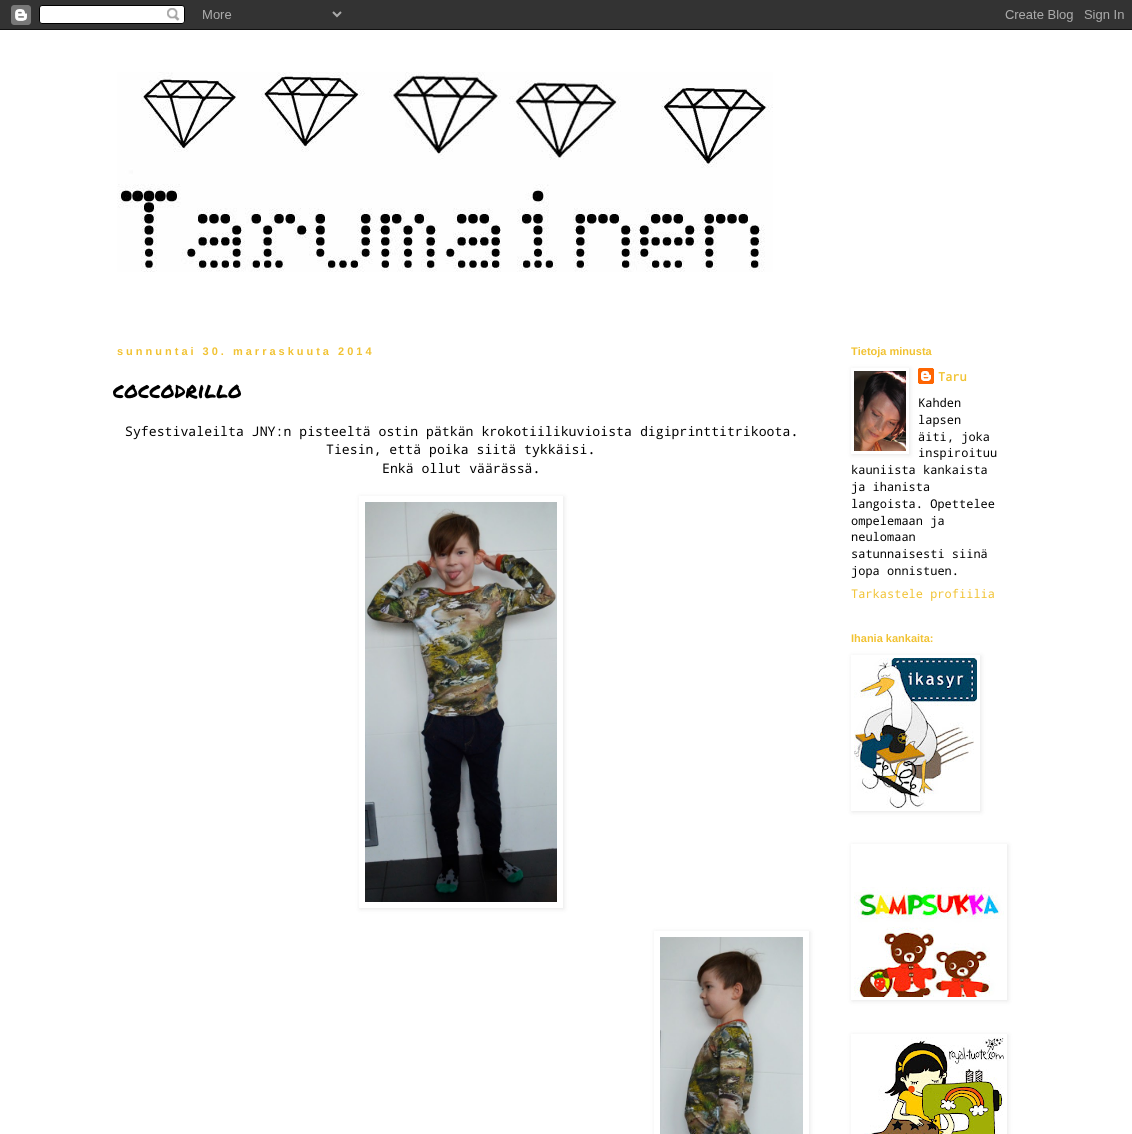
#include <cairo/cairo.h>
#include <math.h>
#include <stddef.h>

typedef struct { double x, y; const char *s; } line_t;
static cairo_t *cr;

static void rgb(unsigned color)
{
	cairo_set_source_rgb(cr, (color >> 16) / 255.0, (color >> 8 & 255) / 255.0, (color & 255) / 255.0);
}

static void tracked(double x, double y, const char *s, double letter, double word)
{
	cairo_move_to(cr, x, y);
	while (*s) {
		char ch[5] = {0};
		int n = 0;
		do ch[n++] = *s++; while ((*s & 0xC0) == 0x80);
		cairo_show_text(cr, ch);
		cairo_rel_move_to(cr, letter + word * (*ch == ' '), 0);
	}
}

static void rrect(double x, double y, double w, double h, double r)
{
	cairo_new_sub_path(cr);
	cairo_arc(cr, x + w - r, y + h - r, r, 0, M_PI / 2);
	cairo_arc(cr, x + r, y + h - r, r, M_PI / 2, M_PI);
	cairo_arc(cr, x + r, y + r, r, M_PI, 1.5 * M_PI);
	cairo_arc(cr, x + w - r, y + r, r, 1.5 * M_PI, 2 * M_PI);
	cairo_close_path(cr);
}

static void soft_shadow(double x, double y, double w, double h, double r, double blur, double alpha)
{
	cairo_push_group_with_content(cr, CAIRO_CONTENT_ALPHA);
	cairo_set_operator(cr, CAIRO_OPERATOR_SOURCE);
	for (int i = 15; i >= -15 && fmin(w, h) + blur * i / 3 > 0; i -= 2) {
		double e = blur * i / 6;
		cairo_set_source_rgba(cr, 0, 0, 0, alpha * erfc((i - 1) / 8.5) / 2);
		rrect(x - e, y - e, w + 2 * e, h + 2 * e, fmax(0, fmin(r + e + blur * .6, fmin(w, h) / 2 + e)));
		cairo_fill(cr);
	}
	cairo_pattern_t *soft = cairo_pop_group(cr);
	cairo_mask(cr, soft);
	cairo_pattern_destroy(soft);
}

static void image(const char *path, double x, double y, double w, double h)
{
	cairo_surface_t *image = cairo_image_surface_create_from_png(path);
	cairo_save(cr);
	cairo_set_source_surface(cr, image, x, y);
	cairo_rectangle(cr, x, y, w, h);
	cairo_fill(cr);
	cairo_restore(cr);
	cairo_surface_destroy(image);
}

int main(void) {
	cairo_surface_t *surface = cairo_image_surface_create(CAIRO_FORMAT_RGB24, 1132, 1134);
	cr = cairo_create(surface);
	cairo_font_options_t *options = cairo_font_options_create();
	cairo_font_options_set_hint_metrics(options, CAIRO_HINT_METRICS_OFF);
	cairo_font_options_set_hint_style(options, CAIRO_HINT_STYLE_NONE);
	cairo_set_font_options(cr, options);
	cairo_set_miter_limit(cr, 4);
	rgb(0xffffff);
	cairo_paint(cr);
	image("img/1.png", 0, 0, 1132, 30);
	image("img/2.png", 117, 72, 656, 200);
	cairo_save(cr);
	cairo_set_fill_rule(cr, CAIRO_FILL_RULE_EVEN_ODD);
	cairo_new_path(cr);
	cairo_move_to(cr, 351, 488);
	cairo_line_to(cr, 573, 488);
	cairo_line_to(cr, 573, 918);
	cairo_line_to(cr, 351, 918);
	cairo_close_path(cr);
	cairo_move_to(cr, 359, 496);
	cairo_line_to(cr, 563, 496);
	cairo_line_to(cr, 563, 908);
	cairo_line_to(cr, 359, 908);
	cairo_close_path(cr);
	cairo_clip(cr);
	rgb(0x000000);
	soft_shadow(360, 497, 204, 412, 0, 2.5, 0.1);
	cairo_restore(cr);
	image("img/3.png", 365, 502, 192, 400);
	cairo_save(cr);
	cairo_set_fill_rule(cr, CAIRO_FILL_RULE_EVEN_ODD);
	cairo_new_path(cr);
	cairo_move_to(cr, 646, 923);
	cairo_line_to(cr, 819, 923);
	cairo_line_to(cr, 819, 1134);
	cairo_line_to(cr, 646, 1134);
	cairo_close_path(cr);
	cairo_move_to(cr, 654, 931);
	cairo_line_to(cr, 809, 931);
	cairo_line_to(cr, 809, 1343);
	cairo_line_to(cr, 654, 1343);
	cairo_close_path(cr);
	cairo_clip(cr);
	rgb(0x000000);
	soft_shadow(655, 932, 155, 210, 0, 2.5, 0.1);
	cairo_restore(cr);
	image("img/4.png", 660, 937, 143, 197);
	image("img/6.png", 918, 368, 16, 16);
	cairo_save(cr);
	cairo_set_fill_rule(cr, CAIRO_FILL_RULE_EVEN_ODD);
	cairo_new_path(cr);
	cairo_move_to(cr, 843, 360);
	cairo_line_to(cr, 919, 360);
	cairo_line_to(cr, 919, 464);
	cairo_line_to(cr, 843, 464);
	cairo_close_path(cr);
	cairo_move_to(cr, 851, 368);
	cairo_line_to(cr, 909, 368);
	cairo_line_to(cr, 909, 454);
	cairo_line_to(cr, 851, 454);
	cairo_close_path(cr);
	cairo_clip(cr);
	rgb(0x000000);
	soft_shadow(852, 369, 58, 86, 0, 2.5, 0.1);
	cairo_restore(cr);
	image("img/5.png", 854, 371, 52, 80);
	cairo_save(cr);
	cairo_set_fill_rule(cr, CAIRO_FILL_RULE_EVEN_ODD);
	cairo_new_path(cr);
	cairo_move_to(cr, 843, 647);
	cairo_line_to(cr, 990, 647);
	cairo_line_to(cr, 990, 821);
	cairo_line_to(cr, 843, 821);
	cairo_close_path(cr);
	cairo_move_to(cr, 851, 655);
	cairo_line_to(cr, 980, 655);
	cairo_line_to(cr, 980, 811);
	cairo_line_to(cr, 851, 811);
	cairo_close_path(cr);
	cairo_clip(cr);
	rgb(0x000000);
	soft_shadow(852, 656, 129, 156, 0, 2.5, 0.1);
	cairo_restore(cr);
	image("img/7.png", 854, 658, 123, 150);
	cairo_save(cr);
	cairo_set_fill_rule(cr, CAIRO_FILL_RULE_EVEN_ODD);
	cairo_new_path(cr);
	cairo_move_to(cr, 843, 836);
	cairo_line_to(cr, 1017, 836);
	cairo_line_to(cr, 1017, 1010);
	cairo_line_to(cr, 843, 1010);
	cairo_close_path(cr);
	cairo_move_to(cr, 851, 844);
	cairo_line_to(cr, 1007, 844);
	cairo_line_to(cr, 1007, 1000);
	cairo_line_to(cr, 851, 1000);
	cairo_close_path(cr);
	cairo_clip(cr);
	rgb(0x000000);
	soft_shadow(852, 845, 156, 156, 0, 2.5, 0.1);
	cairo_restore(cr);
	image("img/8.png", 854, 887, 150, 110);
	cairo_save(cr);
	cairo_set_fill_rule(cr, CAIRO_FILL_RULE_EVEN_ODD);
	cairo_new_path(cr);
	cairo_move_to(cr, 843, 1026);
	cairo_line_to(cr, 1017, 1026);
	cairo_line_to(cr, 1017, 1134);
	cairo_line_to(cr, 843, 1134);
	cairo_close_path(cr);
	cairo_move_to(cr, 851, 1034);
	cairo_line_to(cr, 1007, 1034);
	cairo_line_to(cr, 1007, 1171);
	cairo_line_to(cr, 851, 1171);
	cairo_close_path(cr);
	cairo_clip(cr);
	rgb(0x000000);
	soft_shadow(852, 1035, 156, 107, 0, 2.5, 0.1);
	cairo_restore(cr);
	image("img/9.png", 864, 1037, 140, 97);
	cairo_select_font_face(cr, "Liberation Sans", CAIRO_FONT_SLANT_NORMAL, CAIRO_FONT_WEIGHT_BOLD);
	cairo_set_font_size(cr, 11);
	rgb(0xf1c232);
	tracked(117, 355, "sunnuntai 30. marraskuuta 2014", 3, 0);
	cairo_select_font_face(cr, "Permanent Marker", CAIRO_FONT_SLANT_NORMAL, CAIRO_FONT_WEIGHT_NORMAL);
	cairo_set_font_size(cr, 22);
	rgb(0x000000);
	cairo_move_to(cr, 113, 398);
	cairo_show_text(cr, "coccodrillo");
	cairo_select_font_face(cr, "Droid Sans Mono", CAIRO_FONT_SLANT_NORMAL, CAIRO_FONT_WEIGHT_NORMAL);
	cairo_set_font_size(cr, 13.2);
	{
		static const line_t items[] = {
			{125, 436, "Syfestivaleilta JNY:n pisteeltä ostin pätkän krokotiilikuvioista digiprinttitrikoota."},
			{326, 454, "Tiesin, että poika siitä tykkäisi."},
			{382, 473, "Enkä ollut väärässä."},
		};
		for (size_t i = 0; i < sizeof items / sizeof *items; i++) {
			cairo_move_to(cr, items[i].x, items[i].y);
			cairo_show_text(cr, items[i].s);
		}
	}
	cairo_select_font_face(cr, "Liberation Sans", CAIRO_FONT_SLANT_NORMAL, CAIRO_FONT_WEIGHT_BOLD);
	cairo_set_font_size(cr, 11);
	rgb(0xf1c232);
	cairo_move_to(cr, 851, 355);
	cairo_show_text(cr, "Tietoja minusta");
	cairo_select_font_face(cr, "Droid Sans Mono", CAIRO_FONT_SLANT_NORMAL, CAIRO_FONT_WEIGHT_BOLD);
	cairo_set_font_size(cr, 12);
	cairo_move_to(cr, 938, 381);
	cairo_show_text(cr, "Taru");
	cairo_select_font_face(cr, "Droid Sans Mono", CAIRO_FONT_SLANT_NORMAL, CAIRO_FONT_WEIGHT_NORMAL);
	rgb(0x000000);
	{
		static const line_t items[] = {
			{918, 407, "Kahden"},
			{918, 424, "lapsen"},
			{918, 441, "äiti, joka"},
			{918, 457, "inspiroituu"},
			{851, 474, "kauniista kankaista"},
			{851, 491, "ja ihanista"},
			{851, 508, "langoista. Opettelee"},
			{851, 525, "ompelemaan ja"},
			{851, 541, "neulomaan"},
			{851, 558, "satunnaisesti siinä"},
			{851, 575, "jopa onnistuen."},
		};
		for (size_t i = 0; i < sizeof items / sizeof *items; i++) {
			cairo_move_to(cr, items[i].x, items[i].y);
			cairo_show_text(cr, items[i].s);
		}
	}
	rgb(0xf1c232);
	cairo_move_to(cr, 851, 598);
	cairo_show_text(cr, "Tarkastele profiilia");
	cairo_select_font_face(cr, "Liberation Sans", CAIRO_FONT_SLANT_NORMAL, CAIRO_FONT_WEIGHT_BOLD);
	cairo_set_font_size(cr, 11);
	cairo_move_to(cr, 851, 642);
	cairo_show_text(cr, "Ihania kankaita:");
	cairo_surface_write_to_png(surface, "page.png");
	cairo_font_options_destroy(options);
	cairo_destroy(cr);
	cairo_surface_destroy(surface);
	return 0;
}
